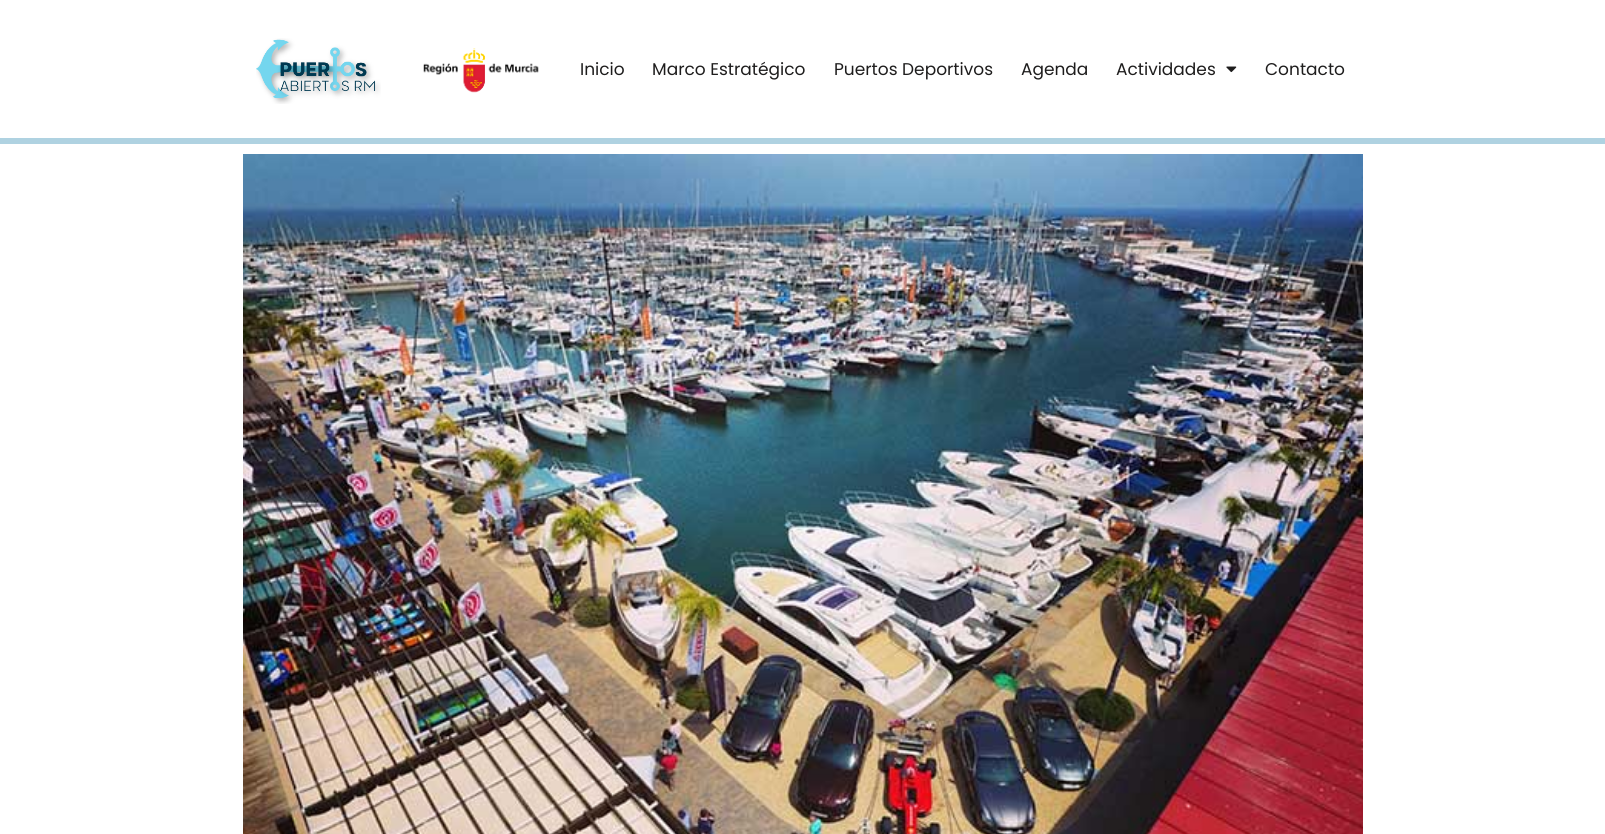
#include <cairo/cairo.h>
#include <math.h>
#include <stddef.h>

typedef struct { double x, y; const char *s; } line_t;
static cairo_t *cr;

static void rgb(unsigned color)
{
	cairo_set_source_rgb(cr, (color >> 16) / 255.0, (color >> 8 & 255) / 255.0, (color & 255) / 255.0);
}

static void image(const char *path, double x, double y, double w, double h)
{
	cairo_surface_t *image = cairo_image_surface_create_from_png(path);
	cairo_save(cr);
	cairo_set_source_surface(cr, image, x, y);
	cairo_rectangle(cr, x, y, w, h);
	cairo_fill(cr);
	cairo_restore(cr);
	cairo_surface_destroy(image);
}

int main(void) {
	cairo_surface_t *surface = cairo_image_surface_create(CAIRO_FORMAT_RGB24, 1605, 834);
	cr = cairo_create(surface);
	cairo_font_options_t *options = cairo_font_options_create();
	cairo_font_options_set_hint_metrics(options, CAIRO_HINT_METRICS_OFF);
	cairo_font_options_set_hint_style(options, CAIRO_HINT_STYLE_NONE);
	cairo_set_font_options(cr, options);
	cairo_set_miter_limit(cr, 4);
	rgb(0xffffff);
	cairo_paint(cr);
	rgb(0xafd2e1);
	cairo_rectangle(cr, 0, 138, 1605, 6);
	cairo_fill(cr);
	image("img/1.png", 256, 38, 125, 66);
	image("img/2.png", 423, 48, 116, 45);
	image("img/3.png", 1226, 66, 11, 7);
	image("img/4.png", 243, 154, 1120, 680);
	cairo_select_font_face(cr, "Poppins", CAIRO_FONT_SLANT_NORMAL, CAIRO_FONT_WEIGHT_NORMAL);
	cairo_set_font_size(cr, 17);
	rgb(0x1e1d1d);
	{
		static const line_t items[] = {
			{580, 75, "Inicio"},
			{652, 75, "Marco Estratégico"},
			{834, 75, "Puertos Deportivos"},
			{1021, 75, "Agenda"},
			{1116, 75, "Actividades"},
			{1265, 75, "Contacto"},
		};
		for (size_t i = 0; i < sizeof items / sizeof *items; i++) {
			cairo_move_to(cr, items[i].x, items[i].y);
			cairo_show_text(cr, items[i].s);
		}
	}
	cairo_surface_write_to_png(surface, "page.png");
	cairo_font_options_destroy(options);
	cairo_destroy(cr);
	cairo_surface_destroy(surface);
	return 0;
}
